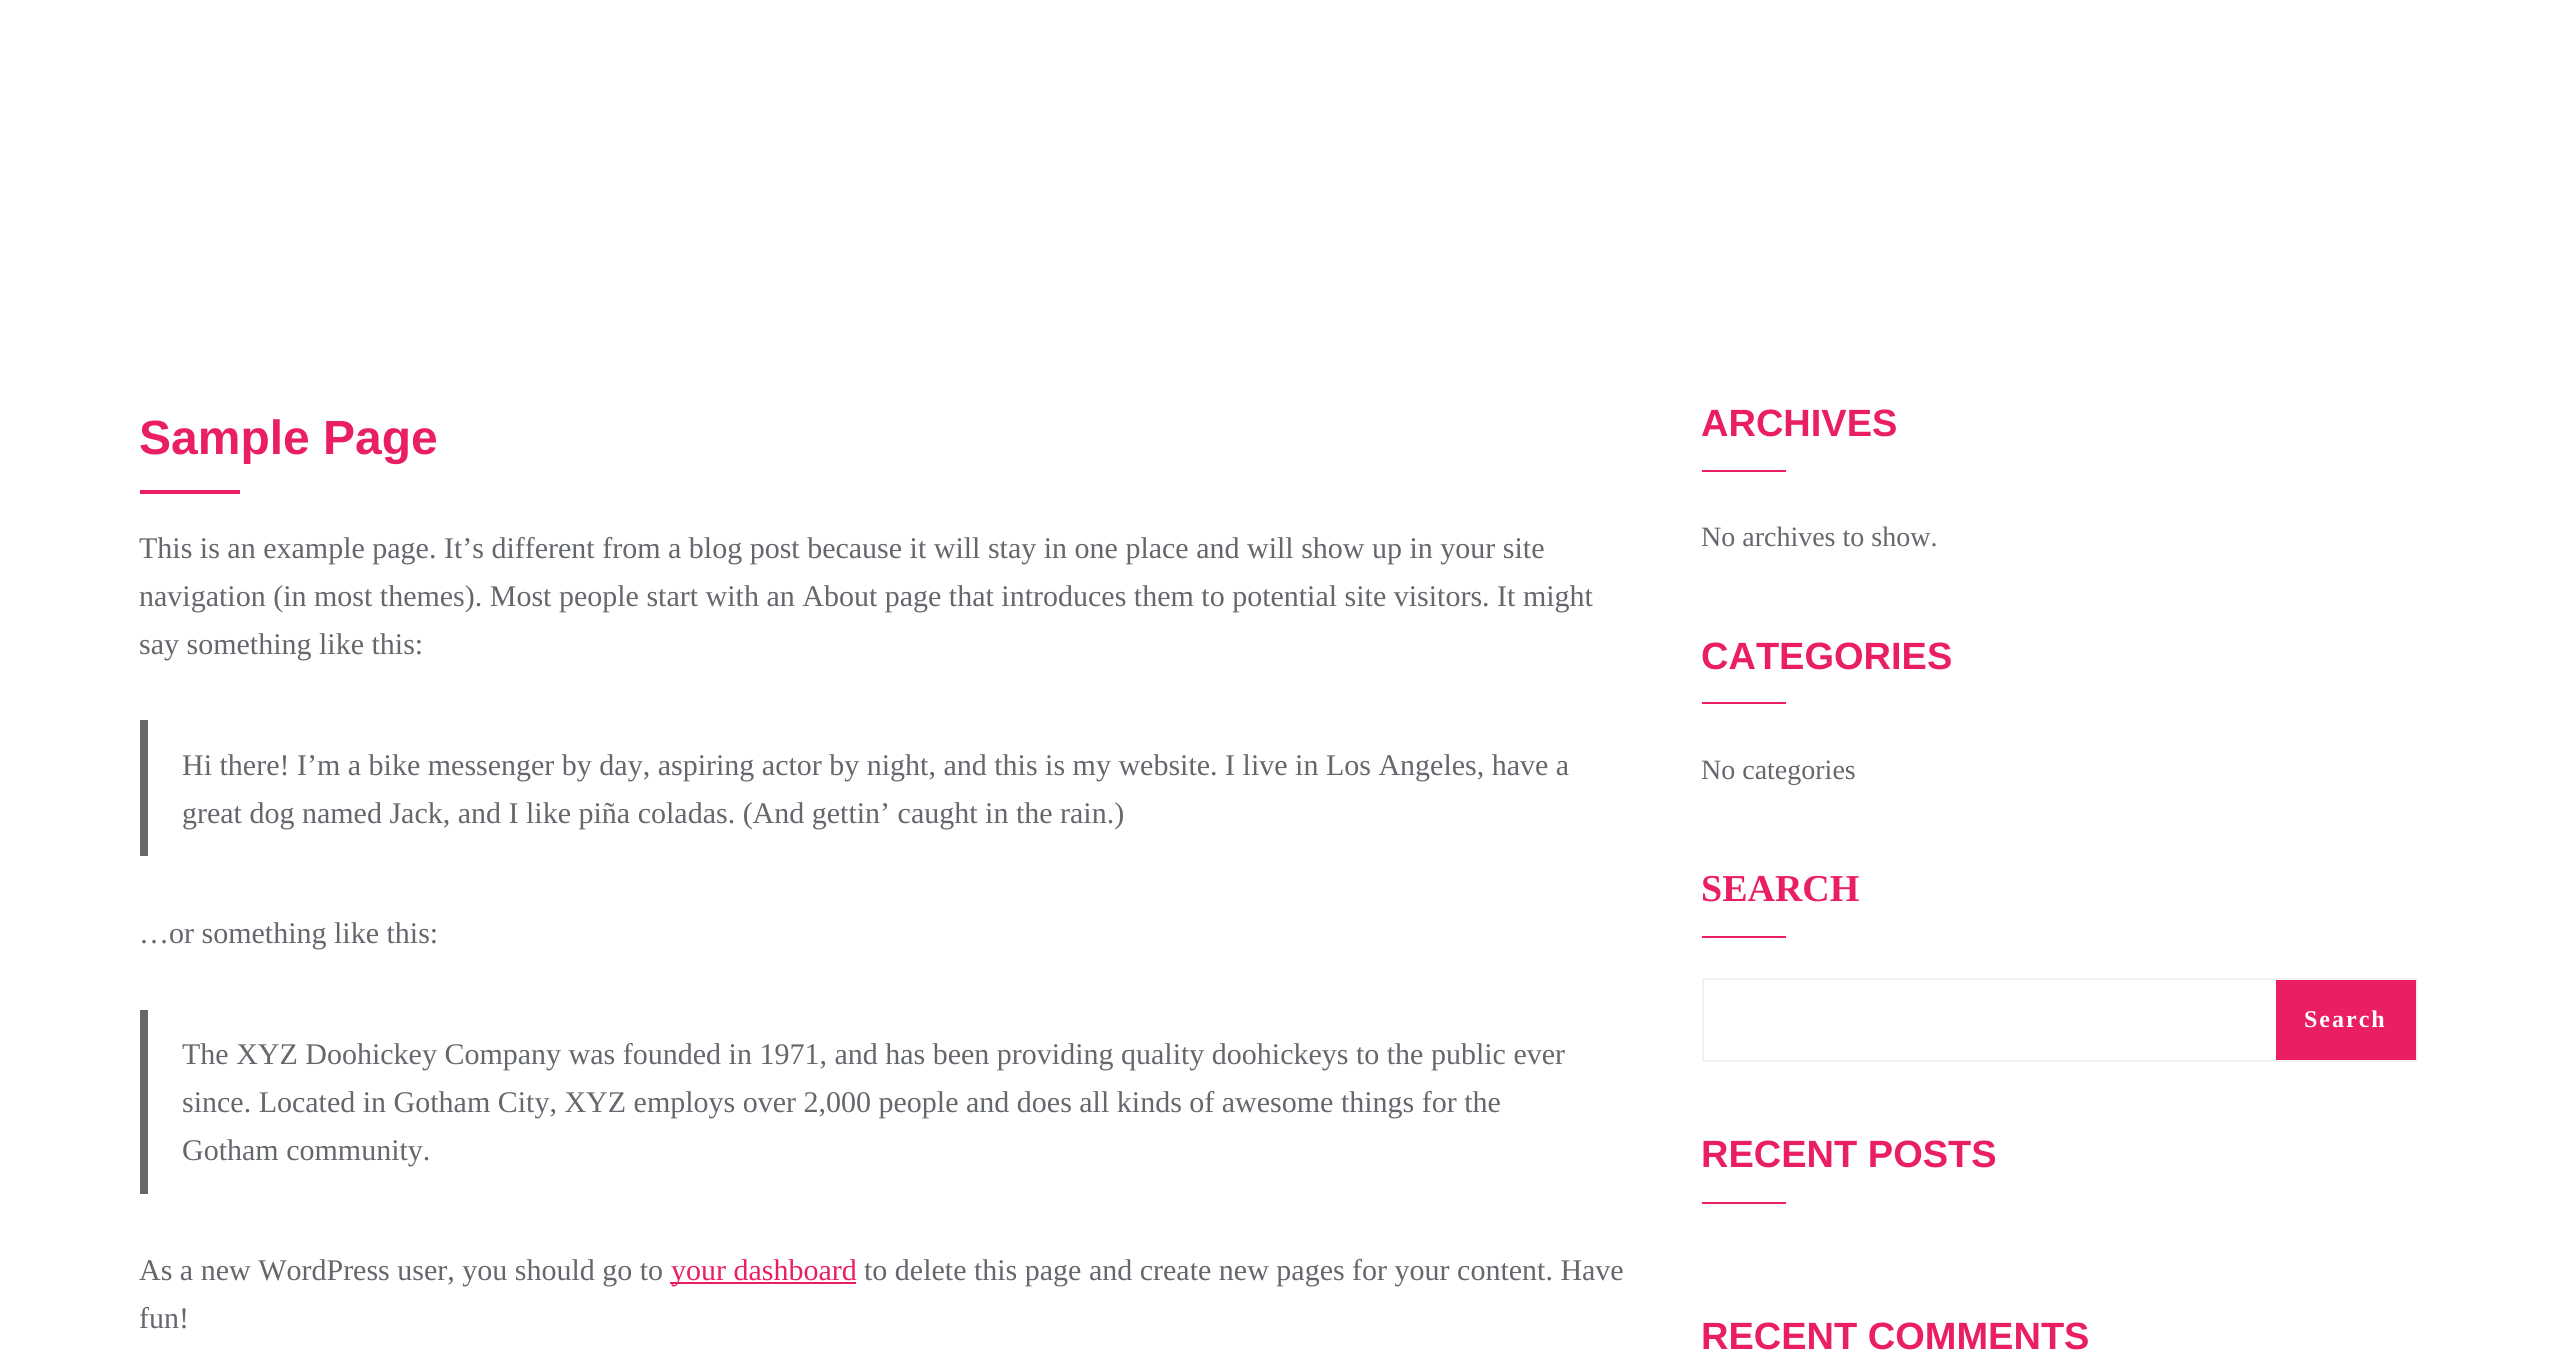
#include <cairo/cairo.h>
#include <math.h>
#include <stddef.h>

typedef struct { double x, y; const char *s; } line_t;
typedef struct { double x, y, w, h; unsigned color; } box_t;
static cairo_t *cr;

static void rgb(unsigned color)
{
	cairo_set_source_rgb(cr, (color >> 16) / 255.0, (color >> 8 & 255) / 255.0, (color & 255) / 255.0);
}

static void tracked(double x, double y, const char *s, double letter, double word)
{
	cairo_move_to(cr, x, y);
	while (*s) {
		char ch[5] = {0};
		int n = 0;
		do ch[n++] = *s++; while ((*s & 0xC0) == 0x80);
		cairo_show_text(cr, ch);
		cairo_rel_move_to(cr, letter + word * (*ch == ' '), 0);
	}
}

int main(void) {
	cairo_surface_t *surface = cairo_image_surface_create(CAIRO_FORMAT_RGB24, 2557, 1367);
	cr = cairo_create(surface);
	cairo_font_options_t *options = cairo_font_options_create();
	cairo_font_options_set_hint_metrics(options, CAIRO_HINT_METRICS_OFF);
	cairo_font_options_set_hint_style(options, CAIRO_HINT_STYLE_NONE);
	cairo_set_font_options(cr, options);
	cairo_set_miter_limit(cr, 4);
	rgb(0xffffff);
	cairo_paint(cr);
	{
		static const box_t items[] = {
			{140, 490, 100, 4, 0xe91e63},
			{140, 720, 8, 136, 0x64686d},
			{140, 1010, 8, 184, 0x64686d},
			{670, 1282, 186, 2, 0xe91e63},
			{1702, 470, 84, 2, 0xe91e63},
			{1702, 702, 84, 2, 0xe91e63},
			{1702, 936, 84, 2, 0xe91e63},
		};
		for (size_t i = 0; i < sizeof items / sizeof *items; i++) {
			rgb(items[i].color);
			cairo_rectangle(cr, items[i].x, items[i].y, items[i].w, items[i].h);
			cairo_fill(cr);
		}
	}
	cairo_rectangle(cr, 1703, 979, 714, 82);
	rgb(0xf1f1f1);
	cairo_stroke(cr);
	rgb(0xe91e63);
	cairo_rectangle(cr, 2276, 980, 140, 80);
	cairo_fill(cr);
	cairo_rectangle(cr, 1702, 1202, 84, 2);
	cairo_fill(cr);
	cairo_select_font_face(cr, "Liberation Sans", CAIRO_FONT_SLANT_NORMAL, CAIRO_FONT_WEIGHT_BOLD);
	cairo_set_font_size(cr, 48);
	cairo_move_to(cr, 139, 454);
	cairo_show_text(cr, "Sample Page");
	cairo_select_font_face(cr, "Liberation Serif", CAIRO_FONT_SLANT_NORMAL, CAIRO_FONT_WEIGHT_NORMAL);
	cairo_set_font_size(cr, 30);
	rgb(0x64686d);
	{
		static const line_t items[] = {
			{139, 558, "This is an example page. It’s different from a blog post because it will stay in one place and will show up in your site"},
			{139, 606, "navigation (in most themes). Most people start with an About page that introduces them to potential site visitors. It might"},
			{139, 654, "say something like this:"},
			{182, 775, "Hi there! I’m a bike messenger by day, aspiring actor by night, and this is my website. I live in Los Angeles, have a"},
			{182, 823, "great dog named Jack, and I like piña coladas. (And gettin’ caught in the rain.)"},
			{139, 943, "…or something like this:"},
			{182, 1064, "The XYZ Doohickey Company was founded in 1971, and has been providing quality doohickeys to the public ever"},
			{182, 1112, "since. Located in Gotham City, XYZ employs over 2,000 people and does all kinds of awesome things for the"},
			{182, 1160, "Gotham community."},
			{139, 1280, "As a new WordPress user, you should go to"},
		};
		for (size_t i = 0; i < sizeof items / sizeof *items; i++) {
			cairo_move_to(cr, items[i].x, items[i].y);
			cairo_show_text(cr, items[i].s);
		}
	}
	rgb(0xe91e63);
	cairo_move_to(cr, 671, 1280);
	cairo_show_text(cr, "your dashboard");
	rgb(0x64686d);
	cairo_move_to(cr, 864, 1280);
	cairo_show_text(cr, "to delete this page and create new pages for your content. Have");
	cairo_move_to(cr, 139, 1328);
	cairo_show_text(cr, "fun!");
	cairo_select_font_face(cr, "Liberation Sans", CAIRO_FONT_SLANT_NORMAL, CAIRO_FONT_WEIGHT_BOLD);
	cairo_set_font_size(cr, 38);
	rgb(0xe91e63);
	cairo_move_to(cr, 1701, 436);
	cairo_show_text(cr, "ARCHIVES");
	cairo_select_font_face(cr, "Liberation Serif", CAIRO_FONT_SLANT_NORMAL, CAIRO_FONT_WEIGHT_NORMAL);
	cairo_set_font_size(cr, 28);
	rgb(0x64686d);
	cairo_move_to(cr, 1701, 546);
	cairo_show_text(cr, "No archives to show.");
	cairo_select_font_face(cr, "Liberation Sans", CAIRO_FONT_SLANT_NORMAL, CAIRO_FONT_WEIGHT_BOLD);
	cairo_set_font_size(cr, 38);
	rgb(0xe91e63);
	cairo_move_to(cr, 1701, 669);
	cairo_show_text(cr, "CATEGORIES");
	cairo_select_font_face(cr, "Liberation Serif", CAIRO_FONT_SLANT_NORMAL, CAIRO_FONT_WEIGHT_NORMAL);
	cairo_set_font_size(cr, 28);
	rgb(0x64686d);
	cairo_move_to(cr, 1701, 779);
	cairo_show_text(cr, "No categories");
	cairo_select_font_face(cr, "Liberation Serif", CAIRO_FONT_SLANT_NORMAL, CAIRO_FONT_WEIGHT_BOLD);
	cairo_set_font_size(cr, 38);
	rgb(0xe91e63);
	cairo_move_to(cr, 1701, 901);
	cairo_show_text(cr, "SEARCH");
	cairo_set_font_size(cr, 24);
	rgb(0xffffff);
	tracked(2304, 1027, "Search", 2, 0);
	cairo_select_font_face(cr, "Liberation Sans", CAIRO_FONT_SLANT_NORMAL, CAIRO_FONT_WEIGHT_BOLD);
	cairo_set_font_size(cr, 38);
	rgb(0xe91e63);
	cairo_move_to(cr, 1701, 1167);
	cairo_show_text(cr, "RECENT POSTS");
	cairo_move_to(cr, 1701, 1349);
	cairo_show_text(cr, "RECENT COMMENTS");
	cairo_surface_write_to_png(surface, "page.png");
	cairo_font_options_destroy(options);
	cairo_destroy(cr);
	cairo_surface_destroy(surface);
	return 0;
}
